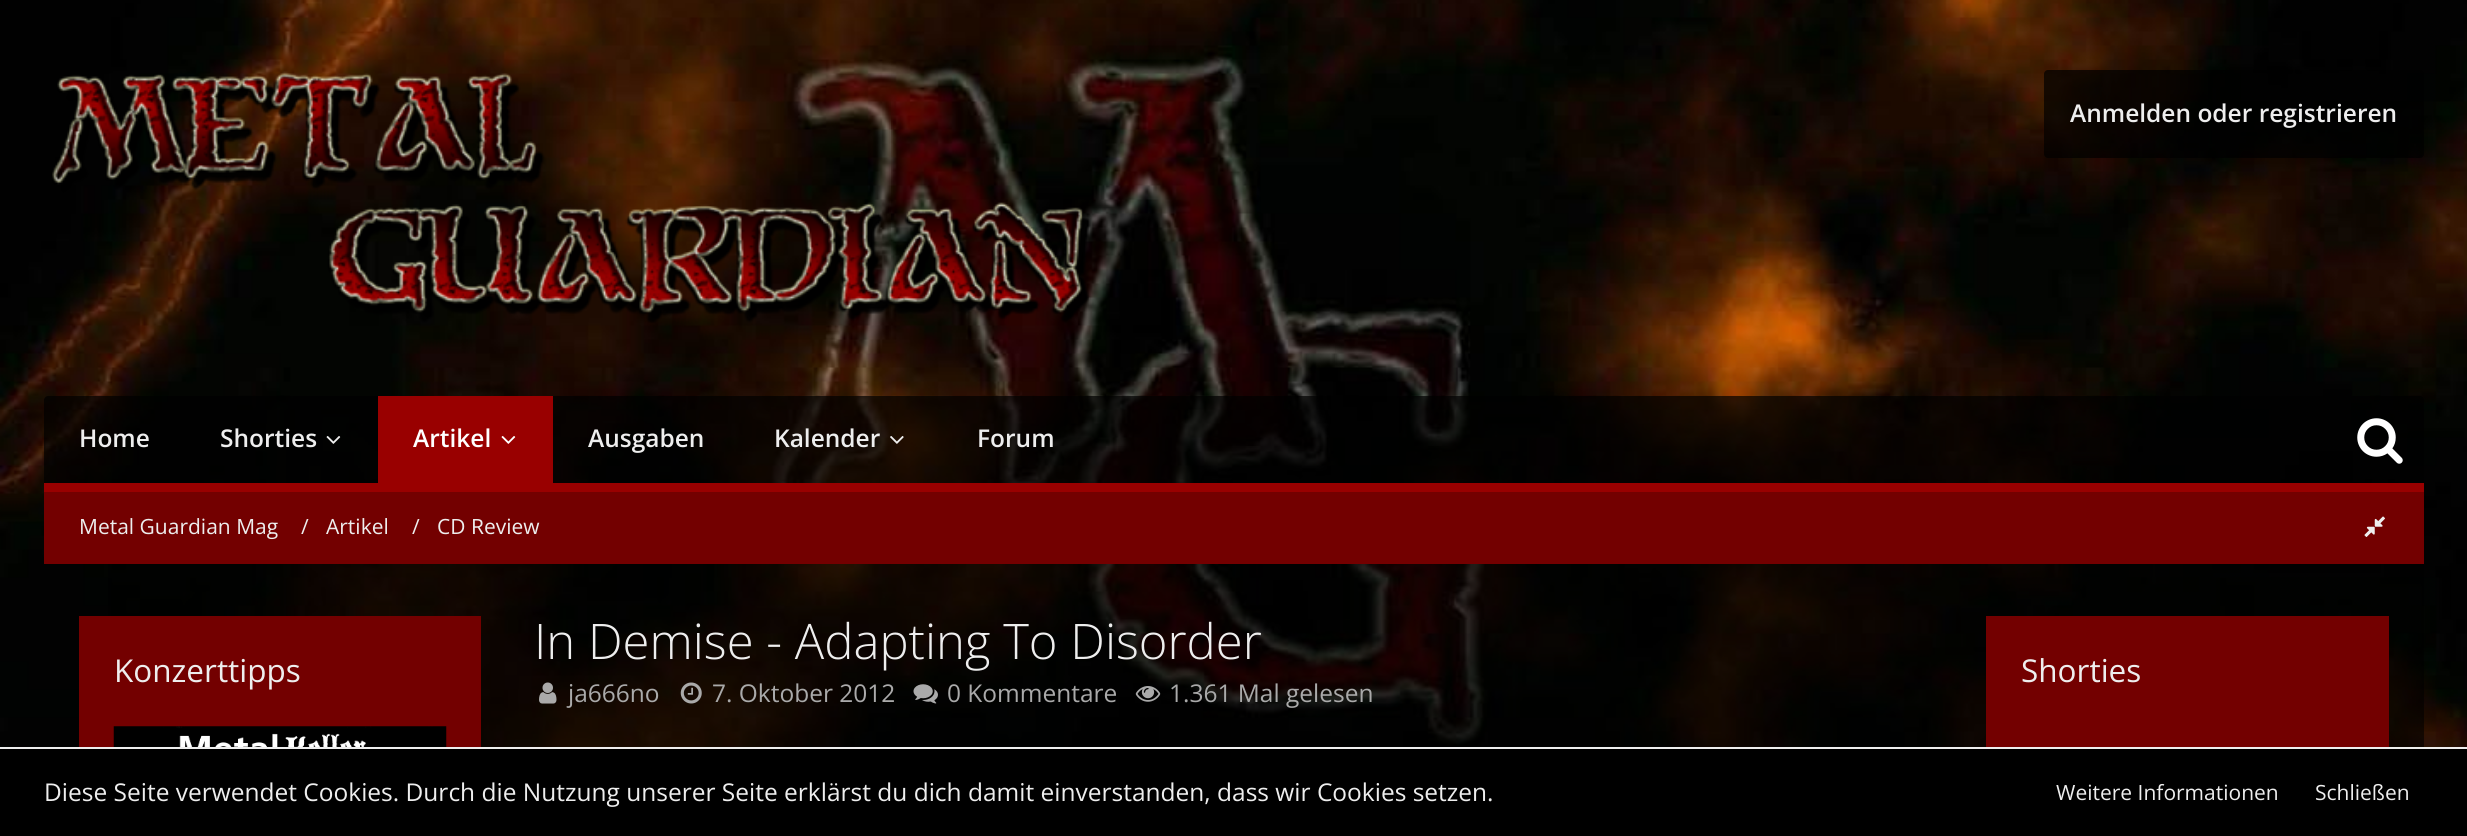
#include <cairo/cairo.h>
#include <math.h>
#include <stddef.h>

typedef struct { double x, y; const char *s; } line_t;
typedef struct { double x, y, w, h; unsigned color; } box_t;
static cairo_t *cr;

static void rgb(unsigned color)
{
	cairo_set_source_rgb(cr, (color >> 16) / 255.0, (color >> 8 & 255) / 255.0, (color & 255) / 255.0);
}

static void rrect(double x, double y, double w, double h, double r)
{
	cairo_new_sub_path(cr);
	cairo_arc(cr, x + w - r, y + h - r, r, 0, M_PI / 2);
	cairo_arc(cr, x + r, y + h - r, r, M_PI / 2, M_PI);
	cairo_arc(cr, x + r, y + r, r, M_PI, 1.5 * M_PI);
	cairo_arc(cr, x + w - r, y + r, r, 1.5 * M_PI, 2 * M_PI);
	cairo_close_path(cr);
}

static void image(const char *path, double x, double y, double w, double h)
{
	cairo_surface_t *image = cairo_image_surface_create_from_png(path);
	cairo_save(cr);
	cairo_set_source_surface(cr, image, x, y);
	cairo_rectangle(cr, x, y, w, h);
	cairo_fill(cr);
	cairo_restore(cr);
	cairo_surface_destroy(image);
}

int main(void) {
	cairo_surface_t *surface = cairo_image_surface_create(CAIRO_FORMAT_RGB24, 2467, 836);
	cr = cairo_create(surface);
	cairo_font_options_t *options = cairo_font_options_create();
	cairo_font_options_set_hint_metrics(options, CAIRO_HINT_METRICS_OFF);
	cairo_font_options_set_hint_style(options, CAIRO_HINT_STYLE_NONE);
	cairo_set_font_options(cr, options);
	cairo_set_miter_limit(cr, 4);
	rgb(0xffffff);
	cairo_paint(cr);
	image("img/1.png", 0, 0, 2467, 747);
	image("img/2.png", 52, 71, 1039, 252);
	cairo_set_source_rgba(cr, 0, 0, 0, 0.7);
	rrect(2044, 70, 380, 88, 4);
	cairo_fill(cr);
	cairo_new_path(cr);
	cairo_move_to(cr, 48, 396);
	cairo_line_to(cr, 2420, 396);
	cairo_curve_to(cr, 2422, 396, 2424, 398, 2424, 400);
	cairo_line_to(cr, 2424, 492);
	cairo_line_to(cr, 44, 492);
	cairo_line_to(cr, 44, 400);
	cairo_curve_to(cr, 44, 398, 46, 396, 48, 396);
	cairo_close_path(cr);
	cairo_fill(cr);
	rgb(0x990000);
	cairo_rectangle(cr, 44, 483, 2380, 9);
	cairo_fill(cr);
	image("img/3.png", 326, 436, 15, 8);
	cairo_rectangle(cr, 378, 396, 175, 87);
	cairo_fill(cr);
	image("img/4.png", 501, 436, 15, 8);
	image("img/5.png", 890, 436, 14, 8);
	image("img/6.png", 2357, 418, 46, 46);
	rgb(0x730000);
	cairo_rectangle(cr, 44, 492, 2380, 72);
	cairo_fill(cr);
	image("img/7.png", 2364, 516, 21, 21);
	cairo_set_source_rgba(cr, 0, 0, 0, 0.6);
	cairo_rectangle(cr, 108, 564, 2316, 183);
	cairo_fill(cr);
	rgb(0x730000);
	cairo_rectangle(cr, 79, 616, 402, 131);
	cairo_fill(cr);
	image("img/8.png", 113, 726, 334, 21);
	image("img/9.png", 539, 682, 18, 22);
	image("img/10.png", 680, 682, 22, 22);
	image("img/11.png", 913, 684, 25, 20);
	image("img/12.png", 1135, 686, 26, 16);
	{
		static const box_t items[] = {
			{1986, 616, 403, 131, 0x730000},
			{0, 749, 2467, 87, 0x000000},
			{0, 747, 2467, 2, 0xeeeeee},
		};
		for (size_t i = 0; i < sizeof items / sizeof *items; i++) {
			rgb(items[i].color);
			cairo_rectangle(cr, items[i].x, items[i].y, items[i].w, items[i].h);
			cairo_fill(cr);
		}
	}
	cairo_select_font_face(cr, "Open Sans SemiBold", CAIRO_FONT_SLANT_NORMAL, CAIRO_FONT_WEIGHT_NORMAL);
	cairo_set_font_size(cr, 24.5);
	{
		static const line_t items[] = {
			{2070, 122, "Anmelden oder registrieren"},
			{79, 447, "Home"},
			{220, 447, "Shorties"},
		};
		for (size_t i = 0; i < sizeof items / sizeof *items; i++) {
			cairo_move_to(cr, items[i].x, items[i].y);
			cairo_show_text(cr, items[i].s);
		}
	}
	rgb(0xffffff);
	cairo_move_to(cr, 413, 447);
	cairo_show_text(cr, "Artikel");
	rgb(0xeeeeee);
	{
		static const line_t items[] = {
			{588, 447, "Ausgaben"},
			{774, 447, "Kalender"},
			{977, 447, "Forum"},
		};
		for (size_t i = 0; i < sizeof items / sizeof *items; i++) {
			cairo_move_to(cr, items[i].x, items[i].y);
			cairo_show_text(cr, items[i].s);
		}
	}
	cairo_select_font_face(cr, "Open Sans", CAIRO_FONT_SLANT_NORMAL, CAIRO_FONT_WEIGHT_NORMAL);
	cairo_set_font_size(cr, 21);
	{
		static const line_t items[] = {
			{79, 534, "Metal Guardian Mag"},
			{301, 534, "/"},
			{326, 534, "Artikel"},
			{412, 534, "/"},
			{437, 534, "CD Review"},
		};
		for (size_t i = 0; i < sizeof items / sizeof *items; i++) {
			cairo_move_to(cr, items[i].x, items[i].y);
			cairo_show_text(cr, items[i].s);
		}
	}
	cairo_set_font_size(cr, 31.5);
	cairo_move_to(cr, 114, 682);
	cairo_show_text(cr, "Konzerttipps");
	cairo_select_font_face(cr, "Open Sans Light", CAIRO_FONT_SLANT_NORMAL, CAIRO_FONT_WEIGHT_NORMAL);
	cairo_set_font_size(cr, 49);
	cairo_move_to(cr, 534, 659);
	cairo_show_text(cr, "In Demise - Adapting To Disorder");
	cairo_select_font_face(cr, "Open Sans", CAIRO_FONT_SLANT_NORMAL, CAIRO_FONT_WEIGHT_NORMAL);
	cairo_set_font_size(cr, 24.5);
	rgb(0xaaaaaa);
	{
		static const line_t items[] = {
			{568, 702, "ja666no"},
			{712, 702, "7. Oktober 2012"},
			{947, 702, "0 Kommentare"},
			{1169, 702, "1.361 Mal gelesen"},
		};
		for (size_t i = 0; i < sizeof items / sizeof *items; i++) {
			cairo_move_to(cr, items[i].x, items[i].y);
			cairo_show_text(cr, items[i].s);
		}
	}
	cairo_set_font_size(cr, 31.5);
	rgb(0xeeeeee);
	cairo_move_to(cr, 2021, 682);
	cairo_show_text(cr, "Shorties");
	cairo_set_font_size(cr, 24.5);
	cairo_move_to(cr, 44, 801);
	cairo_show_text(cr, "Diese Seite verwendet Cookies. Durch die Nutzung unserer Seite erklärst du dich damit einverstanden, dass wir Cookies setzen.");
	cairo_set_font_size(cr, 21);
	cairo_move_to(cr, 2056, 800);
	cairo_show_text(cr, "Weitere Informationen");
	cairo_move_to(cr, 2315, 800);
	cairo_show_text(cr, "Schließen");
	cairo_surface_write_to_png(surface, "page.png");
	cairo_font_options_destroy(options);
	cairo_destroy(cr);
	cairo_surface_destroy(surface);
	return 0;
}
